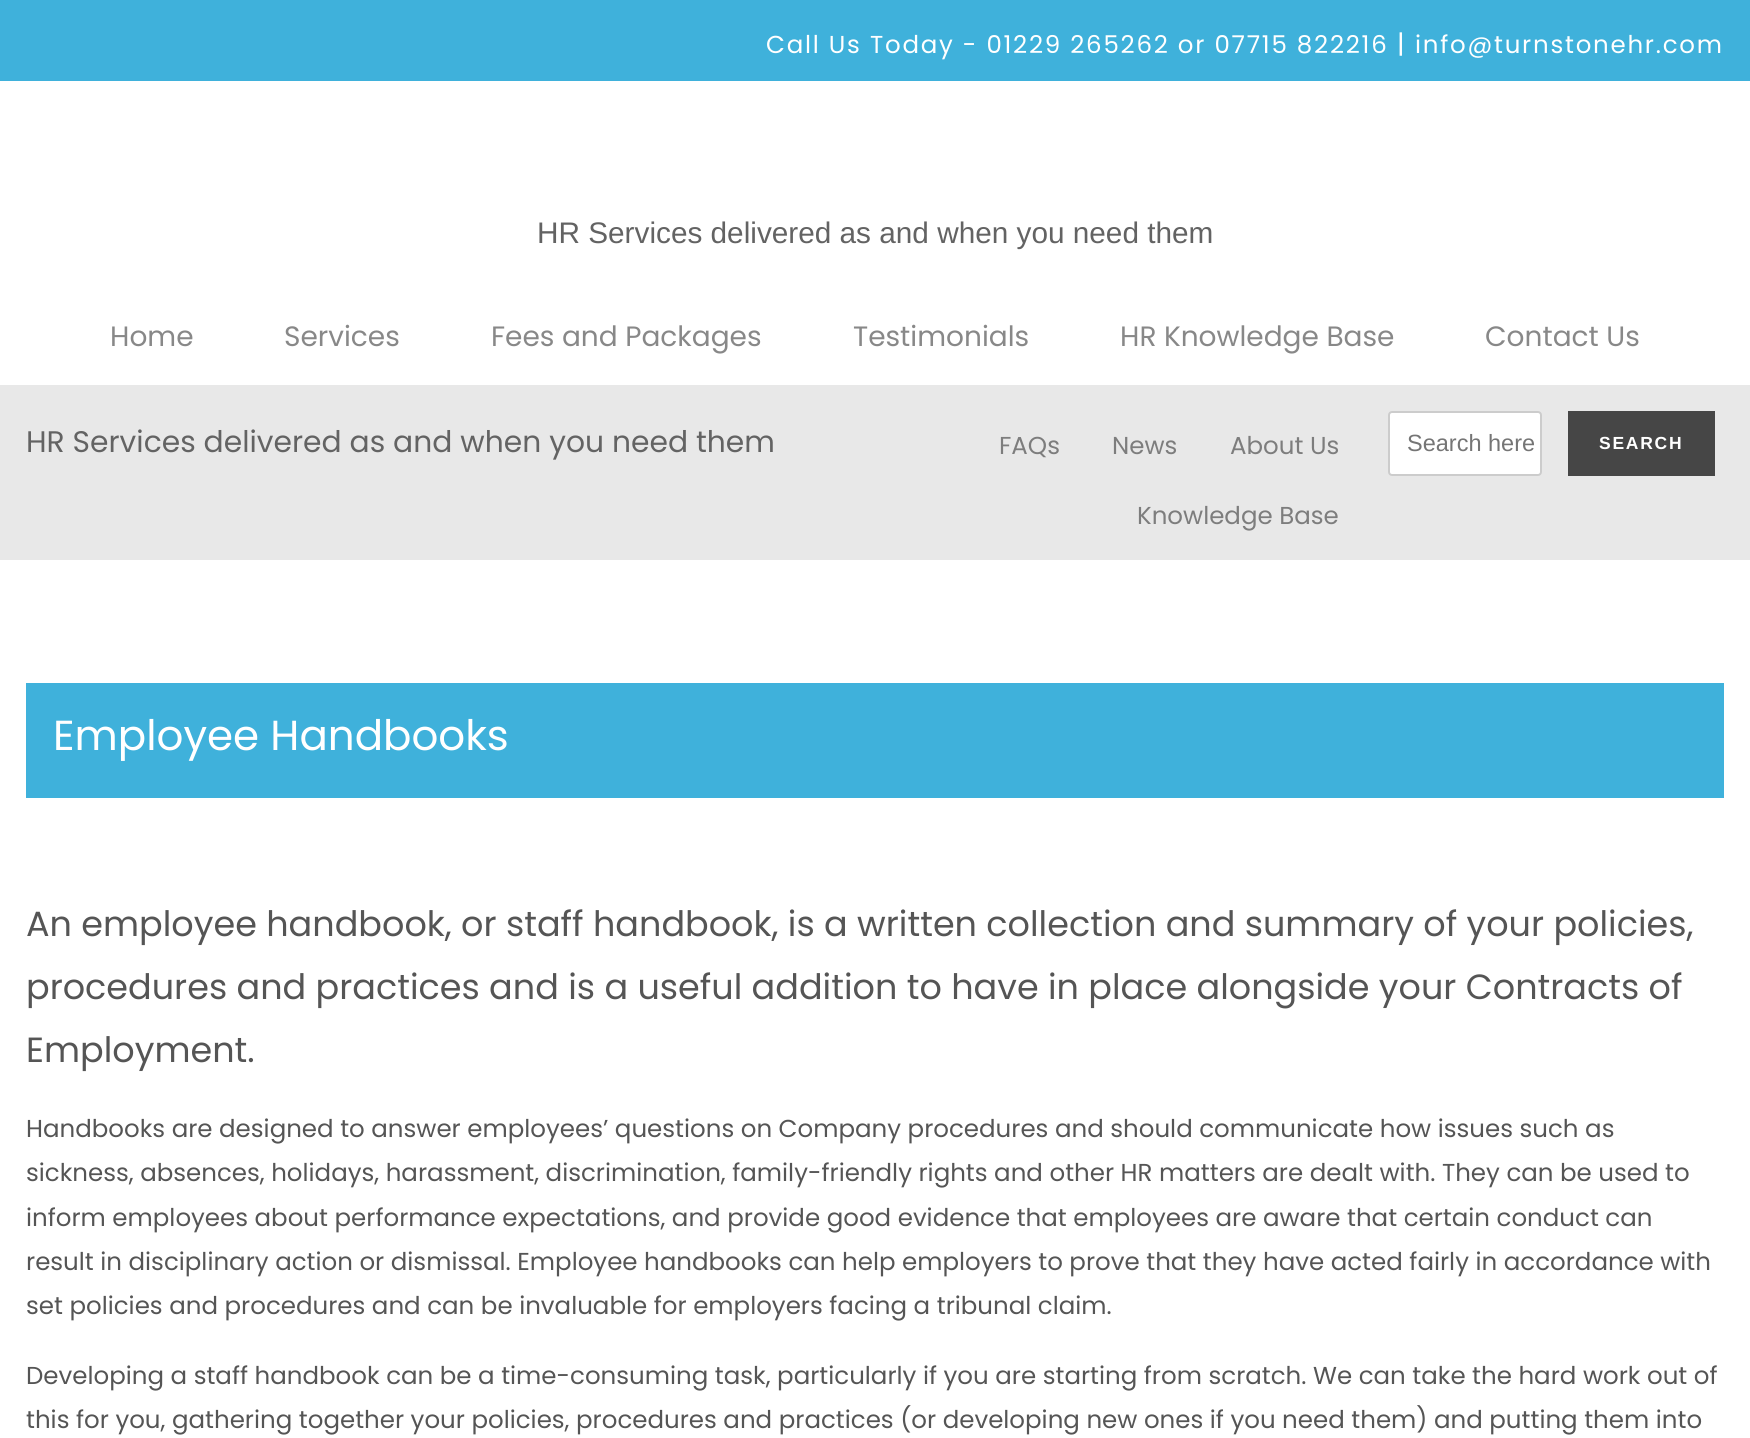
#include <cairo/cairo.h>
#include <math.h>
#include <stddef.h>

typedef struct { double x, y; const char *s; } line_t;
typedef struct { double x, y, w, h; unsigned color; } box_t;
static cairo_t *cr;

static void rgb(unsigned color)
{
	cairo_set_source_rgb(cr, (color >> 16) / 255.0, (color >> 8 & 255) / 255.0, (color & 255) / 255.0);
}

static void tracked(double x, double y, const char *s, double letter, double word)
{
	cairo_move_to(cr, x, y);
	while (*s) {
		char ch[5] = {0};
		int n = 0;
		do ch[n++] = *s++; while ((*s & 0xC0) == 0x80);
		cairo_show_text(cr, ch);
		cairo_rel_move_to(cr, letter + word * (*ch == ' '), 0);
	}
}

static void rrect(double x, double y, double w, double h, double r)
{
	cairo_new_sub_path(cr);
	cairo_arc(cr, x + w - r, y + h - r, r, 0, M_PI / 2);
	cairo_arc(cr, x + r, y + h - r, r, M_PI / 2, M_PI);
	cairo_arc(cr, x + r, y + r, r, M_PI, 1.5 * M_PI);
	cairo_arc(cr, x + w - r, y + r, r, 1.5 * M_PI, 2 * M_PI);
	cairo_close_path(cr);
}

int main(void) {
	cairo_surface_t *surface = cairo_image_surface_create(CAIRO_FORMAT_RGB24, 1750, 1438);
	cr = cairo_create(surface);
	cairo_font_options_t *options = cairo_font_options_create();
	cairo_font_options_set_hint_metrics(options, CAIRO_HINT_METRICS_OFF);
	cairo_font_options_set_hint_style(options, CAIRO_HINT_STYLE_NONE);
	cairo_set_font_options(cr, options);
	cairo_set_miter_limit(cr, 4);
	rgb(0x3fb1db);
	cairo_paint(cr);
	rgb(0xffffff);
	cairo_rectangle(cr, 0, 81, 1750, 304);
	cairo_fill(cr);
	rgb(0xe8e8e8);
	cairo_rectangle(cr, 0, 385, 1750, 175);
	cairo_fill(cr);
	rgb(0xffffff);
	rrect(1389, 412, 152, 63, 3);
	cairo_fill_preserve(cr);
	rgb(0xcccccc);
	cairo_stroke(cr);
	{
		static const box_t items[] = {
			{1568, 411, 147, 65, 0x464646},
			{0, 560, 1750, 878, 0xffffff},
			{26, 683, 1698, 115, 0x3fb1db},
		};
		for (size_t i = 0; i < sizeof items / sizeof *items; i++) {
			rgb(items[i].color);
			cairo_rectangle(cr, items[i].x, items[i].y, items[i].w, items[i].h);
			cairo_fill(cr);
		}
	}
	cairo_select_font_face(cr, "Poppins", CAIRO_FONT_SLANT_NORMAL, CAIRO_FONT_WEIGHT_NORMAL);
	cairo_set_font_size(cr, 24.5);
	rgb(0xffffff);
	tracked(766, 53, "Call Us Today - 01229 265262 or 07715 822216", 1.75, 0);
	cairo_set_font_size(cr, 26);
	tracked(1397, 53, "|", 1.75, 0);
	cairo_set_font_size(cr, 24.5);
	tracked(1415, 53, "info@turnstonehr.com", 1.75, 0);
	cairo_select_font_face(cr, "Liberation Sans", CAIRO_FONT_SLANT_NORMAL, CAIRO_FONT_WEIGHT_NORMAL);
	cairo_set_font_size(cr, 29.75);
	rgb(0x636363);
	cairo_move_to(cr, 537, 243);
	cairo_show_text(cr, "HR Services delivered as and when you need them");
	cairo_select_font_face(cr, "Poppins", CAIRO_FONT_SLANT_NORMAL, CAIRO_FONT_WEIGHT_NORMAL);
	cairo_set_font_size(cr, 28);
	rgb(0x888888);
	{
		static const line_t items[] = {
			{110, 346, "Home"},
			{284, 346, "Services"},
			{491, 346, "Fees and Packages"},
			{853, 346, "Testimonials"},
			{1120, 346, "HR Knowledge Base"},
			{1485, 346, "Contact Us"},
		};
		for (size_t i = 0; i < sizeof items / sizeof *items; i++) {
			cairo_move_to(cr, items[i].x, items[i].y);
			cairo_show_text(cr, items[i].s);
		}
	}
	cairo_set_font_size(cr, 29.75);
	rgb(0x636363);
	cairo_move_to(cr, 26, 452);
	cairo_show_text(cr, "HR Services delivered as and when you need them");
	cairo_set_font_size(cr, 24.5);
	rgb(0x7d7d7d);
	{
		static const line_t items[] = {
			{999, 454, "FAQs"},
			{1112, 454, "News"},
			{1230, 454, "About Us"},
			{1137, 524, "Knowledge Base"},
		};
		for (size_t i = 0; i < sizeof items / sizeof *items; i++) {
			cairo_move_to(cr, items[i].x, items[i].y);
			cairo_show_text(cr, items[i].s);
		}
	}
	cairo_select_font_face(cr, "Liberation Sans", CAIRO_FONT_SLANT_NORMAL, CAIRO_FONT_WEIGHT_NORMAL);
	cairo_set_font_size(cr, 23.5);
	rgb(0x757575);
	cairo_move_to(cr, 1407, 451);
	cairo_show_text(cr, "Search here");
	cairo_select_font_face(cr, "Liberation Sans", CAIRO_FONT_SLANT_NORMAL, CAIRO_FONT_WEIGHT_BOLD);
	cairo_set_font_size(cr, 17.5);
	rgb(0xffffff);
	tracked(1599, 449, "SEARCH", 1.75, 0);
	cairo_select_font_face(cr, "Poppins", CAIRO_FONT_SLANT_NORMAL, CAIRO_FONT_WEIGHT_NORMAL);
	cairo_set_font_size(cr, 42);
	cairo_move_to(cr, 53, 750);
	cairo_show_text(cr, "Employee Handbooks");
	cairo_set_font_size(cr, 35);
	rgb(0x555555);
	{
		static const line_t items[] = {
			{26, 936, "An employee handbook, or staff handbook, is a written collection and summary of your policies,"},
			{26, 999, "procedures and practices and is a useful addition to have in place alongside your Contracts of"},
			{26, 1062, "Employment."},
		};
		for (size_t i = 0; i < sizeof items / sizeof *items; i++) {
			cairo_move_to(cr, items[i].x, items[i].y);
			cairo_show_text(cr, items[i].s);
		}
	}
	cairo_set_font_size(cr, 24.5);
	{
		static const line_t items[] = {
			{26, 1137, "Handbooks are designed to answer employees’ questions on Company procedures and should communicate how issues such as"},
			{26, 1181, "sickness, absences, holidays, harassment, discrimination, family-friendly rights and other HR matters are dealt with. They can be used to"},
			{26, 1226, "inform employees about performance expectations, and provide good evidence that employees are aware that certain conduct can"},
			{26, 1270, "result in disciplinary action or dismissal. Employee handbooks can help employers to prove that they have acted fairly in accordance with"},
			{26, 1314, "set policies and procedures and can be invaluable for employers facing a tribunal claim."},
			{26, 1384, "Developing a staff handbook can be a time-consuming task, particularly if you are starting from scratch. We can take the hard work out of"},
			{26, 1428, "this for you, gathering together your policies, procedures and practices (or developing new ones if you need them) and putting them into"},
		};
		for (size_t i = 0; i < sizeof items / sizeof *items; i++) {
			cairo_move_to(cr, items[i].x, items[i].y);
			cairo_show_text(cr, items[i].s);
		}
	}
	cairo_surface_write_to_png(surface, "page.png");
	cairo_font_options_destroy(options);
	cairo_destroy(cr);
	cairo_surface_destroy(surface);
	return 0;
}
